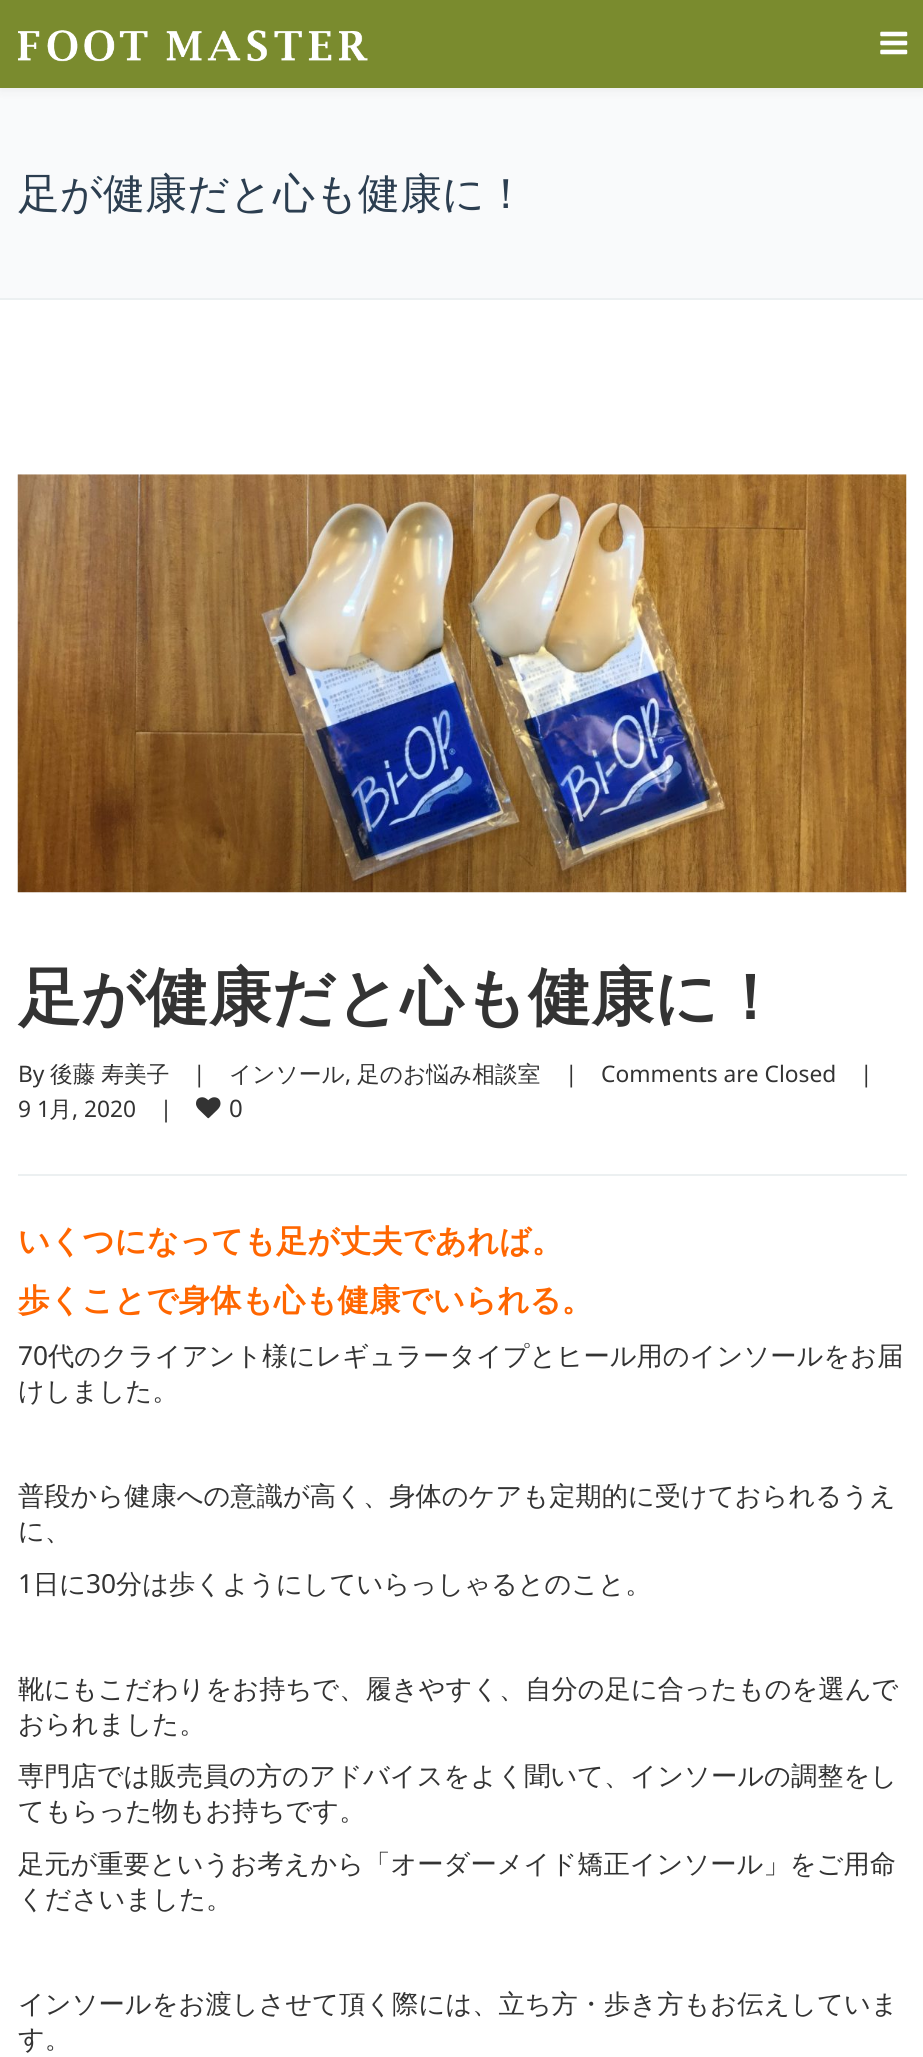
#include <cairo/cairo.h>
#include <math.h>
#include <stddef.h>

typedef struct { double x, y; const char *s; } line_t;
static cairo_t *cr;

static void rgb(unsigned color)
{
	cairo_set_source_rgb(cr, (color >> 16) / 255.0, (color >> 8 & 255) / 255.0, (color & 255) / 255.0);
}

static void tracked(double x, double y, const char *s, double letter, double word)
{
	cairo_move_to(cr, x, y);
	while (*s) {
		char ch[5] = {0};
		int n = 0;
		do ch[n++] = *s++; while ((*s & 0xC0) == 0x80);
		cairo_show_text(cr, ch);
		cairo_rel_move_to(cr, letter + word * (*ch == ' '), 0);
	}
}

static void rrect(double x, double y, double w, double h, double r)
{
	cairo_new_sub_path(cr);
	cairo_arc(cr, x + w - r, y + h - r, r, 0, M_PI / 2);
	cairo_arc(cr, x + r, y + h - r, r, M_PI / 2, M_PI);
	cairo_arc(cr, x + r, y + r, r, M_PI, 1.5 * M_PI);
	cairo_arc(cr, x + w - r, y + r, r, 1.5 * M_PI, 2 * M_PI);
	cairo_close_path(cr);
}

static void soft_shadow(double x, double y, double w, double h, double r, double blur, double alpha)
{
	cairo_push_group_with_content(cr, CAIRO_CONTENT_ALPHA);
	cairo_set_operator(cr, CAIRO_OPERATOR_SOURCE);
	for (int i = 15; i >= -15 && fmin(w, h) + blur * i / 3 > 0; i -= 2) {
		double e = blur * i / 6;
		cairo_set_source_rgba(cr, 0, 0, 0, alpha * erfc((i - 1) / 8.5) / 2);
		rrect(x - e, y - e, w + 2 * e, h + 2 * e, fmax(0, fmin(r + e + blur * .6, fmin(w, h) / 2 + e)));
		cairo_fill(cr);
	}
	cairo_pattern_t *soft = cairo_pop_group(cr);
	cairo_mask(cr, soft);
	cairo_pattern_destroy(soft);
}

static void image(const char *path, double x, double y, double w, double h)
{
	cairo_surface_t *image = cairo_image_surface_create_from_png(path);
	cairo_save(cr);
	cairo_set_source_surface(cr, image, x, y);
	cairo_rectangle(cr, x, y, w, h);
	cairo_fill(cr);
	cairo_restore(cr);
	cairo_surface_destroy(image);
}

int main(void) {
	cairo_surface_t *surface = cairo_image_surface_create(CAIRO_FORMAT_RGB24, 923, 2057);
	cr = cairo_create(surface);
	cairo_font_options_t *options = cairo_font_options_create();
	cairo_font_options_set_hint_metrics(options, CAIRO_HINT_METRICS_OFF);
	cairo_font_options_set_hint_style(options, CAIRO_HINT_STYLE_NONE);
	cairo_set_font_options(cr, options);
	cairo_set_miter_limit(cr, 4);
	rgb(0xffffff);
	cairo_paint(cr);
	rgb(0xf9fafb);
	cairo_rectangle(cr, 0, 88, 923, 210);
	cairo_fill(cr);
	rgb(0x000000);
	soft_shadow(0, 4, 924, 87, 0, 5, 0.05);
	rgb(0x7a8b2e);
	cairo_rectangle(cr, 0, 0, 923, 88);
	cairo_fill(cr);
	image("img/1.png", 18, 30, 350, 32);
	image("img/2.png", 880, 31, 28, 24);
	rgb(0xecf0f1);
	cairo_rectangle(cr, 0, 298, 923, 2);
	cairo_fill(cr);
	image("img/3.png", 17, 474, 890, 419);
	cairo_rectangle(cr, 18, 1174, 889, 2);
	cairo_fill(cr);
	image("img/4.png", 196, 1097, 25, 22);
	cairo_select_font_face(cr, "WenQuanYi Zen Hei Medium", CAIRO_FONT_SLANT_NORMAL, CAIRO_FONT_WEIGHT_NORMAL);
	cairo_set_font_size(cr, 42);
	rgb(0x2c3e50);
	cairo_move_to(cr, 18, 208);
	cairo_show_text(cr, "足が健康だと心も健康に！");
	cairo_select_font_face(cr, "WenQuanYi Zen Hei", CAIRO_FONT_SLANT_NORMAL, CAIRO_FONT_WEIGHT_BOLD);
	cairo_set_font_size(cr, 63);
	rgb(0x333333);
	cairo_move_to(cr, 18, 1019);
	cairo_show_text(cr, "足が健康だと心も健康に！");
	cairo_select_font_face(cr, "Noto Sans", CAIRO_FONT_SLANT_NORMAL, CAIRO_FONT_WEIGHT_NORMAL);
	cairo_set_font_size(cr, 22.75);
	cairo_move_to(cr, 18, 1082);
	cairo_show_text(cr, "By");
	cairo_select_font_face(cr, "WenQuanYi Zen Hei Medium", CAIRO_FONT_SLANT_NORMAL, CAIRO_FONT_WEIGHT_NORMAL);
	tracked(50, 1082, "後藤 寿美子", 0, -1);
	cairo_select_font_face(cr, "Noto Sans", CAIRO_FONT_SLANT_NORMAL, CAIRO_FONT_WEIGHT_NORMAL);
	cairo_move_to(cr, 193, 1082);
	cairo_show_text(cr, "|");
	cairo_select_font_face(cr, "WenQuanYi Zen Hei Medium", CAIRO_FONT_SLANT_NORMAL, CAIRO_FONT_WEIGHT_NORMAL);
	cairo_move_to(cr, 229, 1082);
	cairo_show_text(cr, "インソール");
	cairo_select_font_face(cr, "Noto Sans", CAIRO_FONT_SLANT_NORMAL, CAIRO_FONT_WEIGHT_NORMAL);
	cairo_move_to(cr, 345, 1082);
	cairo_show_text(cr, ",");
	cairo_select_font_face(cr, "WenQuanYi Zen Hei Medium", CAIRO_FONT_SLANT_NORMAL, CAIRO_FONT_WEIGHT_NORMAL);
	cairo_move_to(cr, 357, 1082);
	cairo_show_text(cr, "足のお悩み相談室");
	cairo_select_font_face(cr, "Noto Sans", CAIRO_FONT_SLANT_NORMAL, CAIRO_FONT_WEIGHT_NORMAL);
	{
		static const line_t items[] = {
			{565, 1082, "|"},
			{601, 1082, "Comments are Closed"},
			{860, 1082, "|"},
			{18, 1117, "9 1"},
		};
		for (size_t i = 0; i < sizeof items / sizeof *items; i++) {
			cairo_move_to(cr, items[i].x, items[i].y);
			cairo_show_text(cr, items[i].s);
		}
	}
	cairo_select_font_face(cr, "WenQuanYi Zen Hei Medium", CAIRO_FONT_SLANT_NORMAL, CAIRO_FONT_WEIGHT_NORMAL);
	cairo_move_to(cr, 49, 1117);
	cairo_show_text(cr, "月");
	cairo_select_font_face(cr, "Noto Sans", CAIRO_FONT_SLANT_NORMAL, CAIRO_FONT_WEIGHT_NORMAL);
	cairo_move_to(cr, 72, 1117);
	cairo_show_text(cr, ", 2020    |");
	cairo_set_font_size(cr, 24);
	cairo_move_to(cr, 229, 1117);
	cairo_show_text(cr, "0");
	cairo_select_font_face(cr, "WenQuanYi Zen Hei", CAIRO_FONT_SLANT_NORMAL, CAIRO_FONT_WEIGHT_BOLD);
	cairo_set_font_size(cr, 31.5);
	rgb(0xff6600);
	cairo_move_to(cr, 18, 1252);
	cairo_show_text(cr, "いくつになっても足が丈夫であれば。");
	cairo_move_to(cr, 18, 1311);
	cairo_show_text(cr, "歩くことで身体も心も健康でいられる。");
	cairo_select_font_face(cr, "Noto Sans", CAIRO_FONT_SLANT_NORMAL, CAIRO_FONT_WEIGHT_NORMAL);
	cairo_set_font_size(cr, 26.25);
	rgb(0x333333);
	cairo_move_to(cr, 18, 1365);
	cairo_show_text(cr, "70");
	cairo_select_font_face(cr, "WenQuanYi Zen Hei Medium", CAIRO_FONT_SLANT_NORMAL, CAIRO_FONT_WEIGHT_NORMAL);
	{
		static const line_t items[] = {
			{48, 1365, "代のクライアント様にレギュラータイプとヒール用のインソールをお届"},
			{18, 1400, "けしました。"},
			{18, 1505, "普段から健康への意識が高く、身体のケアも定期的に受けておられるうえ"},
			{18, 1540, "に、"},
		};
		for (size_t i = 0; i < sizeof items / sizeof *items; i++) {
			cairo_move_to(cr, items[i].x, items[i].y);
			cairo_show_text(cr, items[i].s);
		}
	}
	cairo_select_font_face(cr, "Noto Sans", CAIRO_FONT_SLANT_NORMAL, CAIRO_FONT_WEIGHT_NORMAL);
	cairo_move_to(cr, 18, 1593);
	cairo_show_text(cr, "1");
	cairo_select_font_face(cr, "WenQuanYi Zen Hei Medium", CAIRO_FONT_SLANT_NORMAL, CAIRO_FONT_WEIGHT_NORMAL);
	cairo_move_to(cr, 33, 1593);
	cairo_show_text(cr, "日に");
	cairo_select_font_face(cr, "Noto Sans", CAIRO_FONT_SLANT_NORMAL, CAIRO_FONT_WEIGHT_NORMAL);
	cairo_move_to(cr, 86, 1593);
	cairo_show_text(cr, "30");
	cairo_select_font_face(cr, "WenQuanYi Zen Hei Medium", CAIRO_FONT_SLANT_NORMAL, CAIRO_FONT_WEIGHT_NORMAL);
	{
		static const line_t items[] = {
			{116, 1593, "分は歩くようにしていらっしゃるとのこと。"},
			{18, 1698, "靴にもこだわりをお持ちで、履きやすく、自分の足に合ったものを選んで"},
			{18, 1733, "おられました。"},
			{18, 1785, "専門店では販売員の方のアドバイスをよく聞いて、インソールの調整をし"},
			{18, 1820, "てもらった物もお持ちです。"},
			{18, 1873, "足元が重要というお考えから「オーダーメイド矯正インソール」をご用命"},
			{18, 1908, "くださいました。"},
			{18, 2013, "インソールをお渡しさせて頂く際には、立ち方・歩き方もお伝えしていま"},
			{18, 2048, "す。"},
		};
		for (size_t i = 0; i < sizeof items / sizeof *items; i++) {
			cairo_move_to(cr, items[i].x, items[i].y);
			cairo_show_text(cr, items[i].s);
		}
	}
	cairo_surface_write_to_png(surface, "page.png");
	cairo_font_options_destroy(options);
	cairo_destroy(cr);
	cairo_surface_destroy(surface);
	return 0;
}
